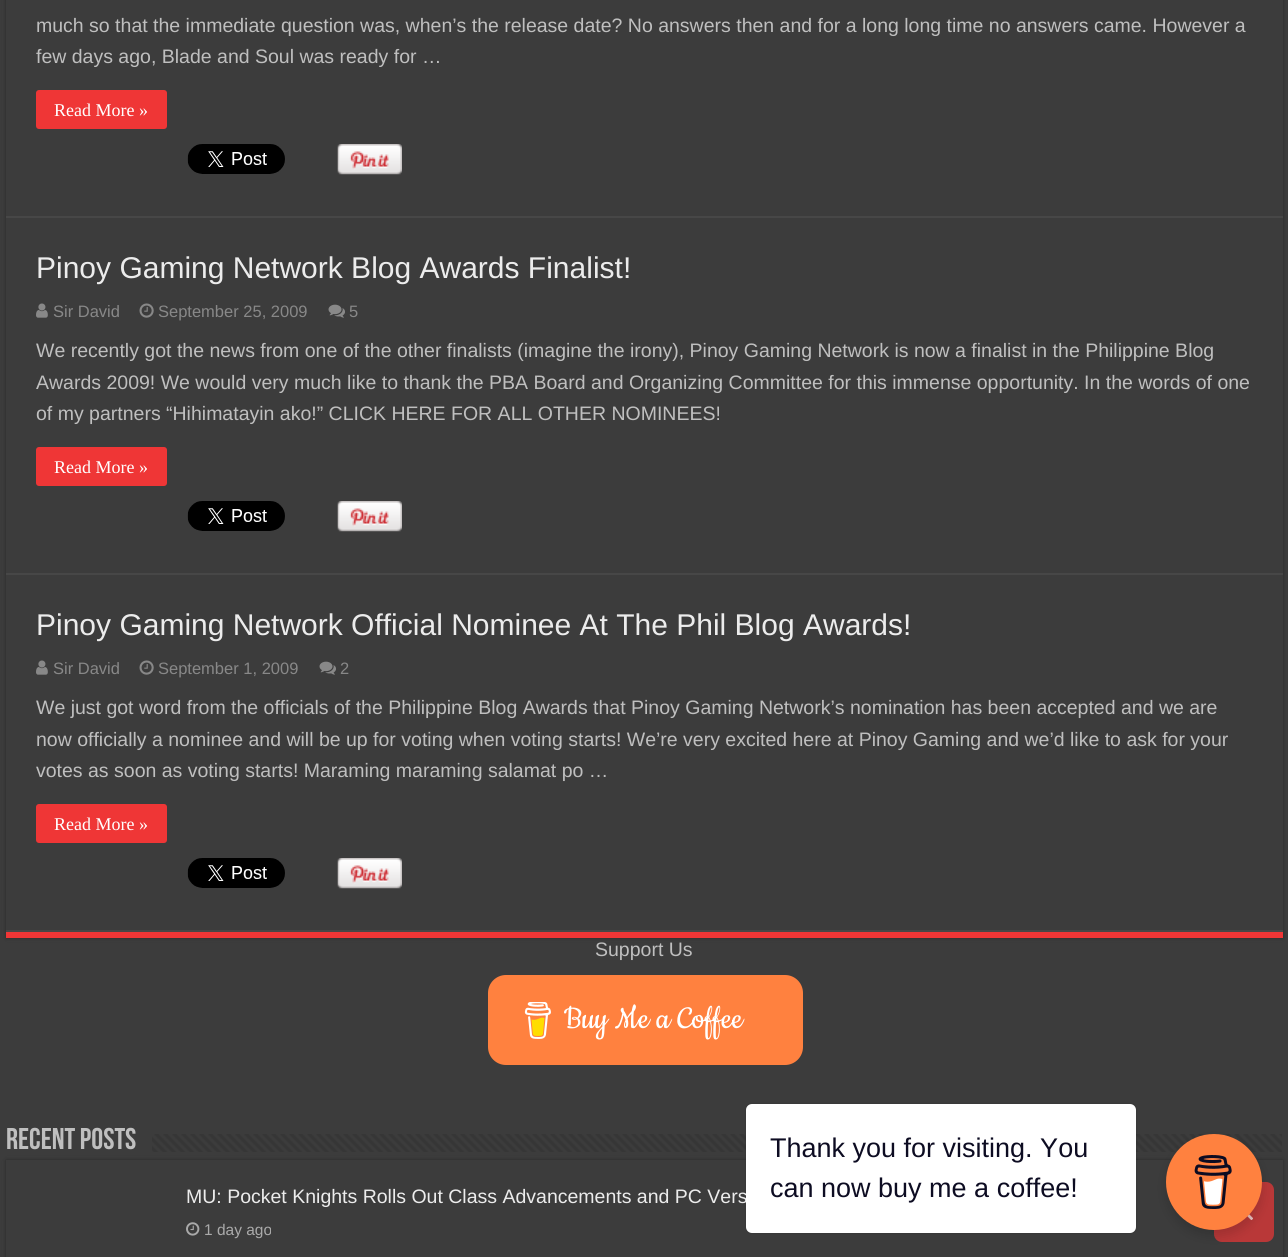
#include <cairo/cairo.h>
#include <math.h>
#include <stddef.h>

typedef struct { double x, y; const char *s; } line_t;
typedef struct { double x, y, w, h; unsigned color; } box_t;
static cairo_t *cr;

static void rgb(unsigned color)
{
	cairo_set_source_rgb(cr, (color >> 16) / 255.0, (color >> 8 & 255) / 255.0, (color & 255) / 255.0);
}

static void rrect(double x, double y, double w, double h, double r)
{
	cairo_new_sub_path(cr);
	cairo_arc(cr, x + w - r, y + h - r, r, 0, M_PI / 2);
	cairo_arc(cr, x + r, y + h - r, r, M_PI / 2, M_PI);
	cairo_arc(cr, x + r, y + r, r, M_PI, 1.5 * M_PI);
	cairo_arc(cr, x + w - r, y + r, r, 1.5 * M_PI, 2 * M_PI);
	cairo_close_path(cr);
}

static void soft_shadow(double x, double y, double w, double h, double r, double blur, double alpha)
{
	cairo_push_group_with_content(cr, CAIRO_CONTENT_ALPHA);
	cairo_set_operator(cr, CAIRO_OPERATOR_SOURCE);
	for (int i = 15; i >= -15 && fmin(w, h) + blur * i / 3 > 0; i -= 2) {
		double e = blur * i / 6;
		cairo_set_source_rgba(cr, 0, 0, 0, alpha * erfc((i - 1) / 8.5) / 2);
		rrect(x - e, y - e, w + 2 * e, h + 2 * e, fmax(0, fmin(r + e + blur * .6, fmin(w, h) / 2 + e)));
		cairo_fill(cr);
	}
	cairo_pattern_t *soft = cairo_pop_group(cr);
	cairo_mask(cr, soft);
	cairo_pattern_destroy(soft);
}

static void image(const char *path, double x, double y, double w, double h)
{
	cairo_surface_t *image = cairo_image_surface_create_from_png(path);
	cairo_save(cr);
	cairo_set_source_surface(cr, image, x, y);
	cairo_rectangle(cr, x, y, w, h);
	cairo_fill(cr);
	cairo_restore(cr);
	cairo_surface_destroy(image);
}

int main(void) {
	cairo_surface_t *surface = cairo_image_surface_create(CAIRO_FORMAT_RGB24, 1288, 1257);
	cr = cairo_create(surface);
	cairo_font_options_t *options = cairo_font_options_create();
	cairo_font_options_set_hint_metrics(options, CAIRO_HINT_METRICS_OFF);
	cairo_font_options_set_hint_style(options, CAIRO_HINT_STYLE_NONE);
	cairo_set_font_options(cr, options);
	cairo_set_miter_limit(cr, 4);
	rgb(0x3c3c3c);
	cairo_paint(cr);
	rgb(0x2a2a2a);
	soft_shadow(6, -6, 1277, 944, 0, 2, 1);
	{
		static const box_t items[] = {
			{6, 0, 1277, 930, 0x3c3c3c},
			{6, 932, 1277, 6, 0xef3636},
			{6, 216, 1277, 2, 0x474747},
		};
		for (size_t i = 0; i < sizeof items / sizeof *items; i++) {
			rgb(items[i].color);
			cairo_rectangle(cr, items[i].x, items[i].y, items[i].w, items[i].h);
			cairo_fill(cr);
		}
	}
	rgb(0xef3636);
	rrect(36, 90, 131, 39, 3);
	cairo_fill(cr);
	image("img/1.png", 187, 144, 98, 30);
	image("img/2.png", 337, 144, 65, 31);
	rgb(0x474747);
	cairo_rectangle(cr, 6, 573, 1277, 2);
	cairo_fill(cr);
	image("img/3.png", 36, 303, 12, 15);
	image("img/4.png", 139, 303, 15, 15);
	image("img/5.png", 328, 304, 17, 14);
	rgb(0xef3636);
	rrect(36, 447, 131, 39, 3);
	cairo_fill(cr);
	image("img/1.png", 187, 501, 98, 30);
	image("img/2.png", 337, 501, 65, 31);
	rgb(0x474747);
	cairo_rectangle(cr, 6, 930, 1277, 2);
	cairo_fill(cr);
	image("img/3.png", 36, 660, 12, 15);
	image("img/4.png", 139, 660, 15, 15);
	image("img/5.png", 319, 661, 17, 14);
	rgb(0xef3636);
	rrect(36, 804, 131, 39, 3);
	cairo_fill(cr);
	image("img/1.png", 187, 858, 98, 30);
	image("img/2.png", 337, 858, 65, 31);
	rgb(0xff813f);
	rrect(488, 975, 315, 90, 18);
	cairo_fill(cr);
	image("img/6.png", 524, 1002, 27, 37);
	image("img/7.png", 152, 1134, 1130, 18);
	rgb(0x2a2a2a);
	soft_shadow(6, 1160, 1277, 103, 0, 2, 1);
	rgb(0x3c3c3c);
	cairo_rectangle(cr, 6, 1160, 1277, 97);
	cairo_fill(cr);
	image("img/8.png", 186, 1222, 14, 14);
	rgb(0x000000);
	soft_shadow(746, 1104, 390, 129, 6, 1.5, 0.15);
	rgb(0xb93838);
	rrect(1214, 1182, 60, 60, 8);
	cairo_fill(cr);
	image("img/10.png", 1247, 1214, 6, 6);
	rgb(0x000000);
	soft_shadow(1166, 1140, 96, 96, 48, 6, 0.15);
	rgb(0xff813f);
	cairo_arc(cr, 1214, 1182, 48, 0, 2 * M_PI);
	cairo_fill(cr);
	image("img/9.png", 1194, 1155, 38, 54);
	cairo_select_font_face(cr, "Liberation Sans", CAIRO_FONT_SLANT_NORMAL, CAIRO_FONT_WEIGHT_NORMAL);
	cairo_set_font_size(cr, 19.5);
	rgb(0xbfbfbf);
	cairo_move_to(cr, 36, 32);
	cairo_show_text(cr, "much so that the immediate question was, when’s the release date? No answers then and for a long long time no answers came. However a");
	cairo_move_to(cr, 36, 63);
	cairo_show_text(cr, "few days ago, Blade and Soul was ready for …");
	cairo_select_font_face(cr, "Liberation Serif", CAIRO_FONT_SLANT_NORMAL, CAIRO_FONT_WEIGHT_NORMAL);
	cairo_set_font_size(cr, 18);
	rgb(0xffffff);
	cairo_move_to(cr, 54, 116);
	cairo_show_text(cr, "Read More »");
	cairo_select_font_face(cr, "Liberation Sans", CAIRO_FONT_SLANT_NORMAL, CAIRO_FONT_WEIGHT_NORMAL);
	cairo_set_font_size(cr, 30);
	rgb(0xececec);
	cairo_move_to(cr, 36, 278);
	cairo_show_text(cr, "Pinoy Gaming Network Blog Awards Finalist!");
	cairo_set_font_size(cr, 16.5);
	rgb(0x888888);
	{
		static const line_t items[] = {
			{53, 317, "Sir David"},
			{158, 317, "September 25, 2009"},
			{349, 317, "5"},
		};
		for (size_t i = 0; i < sizeof items / sizeof *items; i++) {
			cairo_move_to(cr, items[i].x, items[i].y);
			cairo_show_text(cr, items[i].s);
		}
	}
	cairo_set_font_size(cr, 19.5);
	rgb(0xbfbfbf);
	{
		static const line_t items[] = {
			{36, 357, "We recently got the news from one of the other finalists (imagine the irony), Pinoy Gaming Network is now a finalist in the Philippine Blog"},
			{36, 389, "Awards 2009! We would very much like to thank the PBA Board and Organizing Committee for this immense opportunity. In the words of one"},
			{36, 420, "of my partners “Hihimatayin ako!” CLICK HERE FOR ALL OTHER NOMINEES!"},
		};
		for (size_t i = 0; i < sizeof items / sizeof *items; i++) {
			cairo_move_to(cr, items[i].x, items[i].y);
			cairo_show_text(cr, items[i].s);
		}
	}
	cairo_select_font_face(cr, "Liberation Serif", CAIRO_FONT_SLANT_NORMAL, CAIRO_FONT_WEIGHT_NORMAL);
	cairo_set_font_size(cr, 18);
	rgb(0xffffff);
	cairo_move_to(cr, 54, 473);
	cairo_show_text(cr, "Read More »");
	cairo_select_font_face(cr, "Liberation Sans", CAIRO_FONT_SLANT_NORMAL, CAIRO_FONT_WEIGHT_NORMAL);
	cairo_set_font_size(cr, 30);
	rgb(0xececec);
	cairo_move_to(cr, 36, 635);
	cairo_show_text(cr, "Pinoy Gaming Network Official Nominee At The Phil Blog Awards!");
	cairo_set_font_size(cr, 16.5);
	rgb(0x888888);
	{
		static const line_t items[] = {
			{53, 674, "Sir David"},
			{158, 674, "September 1, 2009"},
			{340, 674, "2"},
		};
		for (size_t i = 0; i < sizeof items / sizeof *items; i++) {
			cairo_move_to(cr, items[i].x, items[i].y);
			cairo_show_text(cr, items[i].s);
		}
	}
	cairo_set_font_size(cr, 19.5);
	rgb(0xbfbfbf);
	{
		static const line_t items[] = {
			{36, 714, "We just got word from the officials of the Philippine Blog Awards that Pinoy Gaming Network’s nomination has been accepted and we are"},
			{36, 746, "now officially a nominee and will be up for voting when voting starts! We’re very excited here at Pinoy Gaming and we’d like to ask for your"},
			{36, 777, "votes as soon as voting starts! Maraming maraming salamat po …"},
		};
		for (size_t i = 0; i < sizeof items / sizeof *items; i++) {
			cairo_move_to(cr, items[i].x, items[i].y);
			cairo_show_text(cr, items[i].s);
		}
	}
	cairo_select_font_face(cr, "Liberation Serif", CAIRO_FONT_SLANT_NORMAL, CAIRO_FONT_WEIGHT_NORMAL);
	cairo_set_font_size(cr, 18);
	rgb(0xffffff);
	cairo_move_to(cr, 54, 830);
	cairo_show_text(cr, "Read More »");
	cairo_select_font_face(cr, "Liberation Sans", CAIRO_FONT_SLANT_NORMAL, CAIRO_FONT_WEIGHT_NORMAL);
	cairo_set_font_size(cr, 19.5);
	rgb(0xbfbfbf);
	cairo_move_to(cr, 595, 956);
	cairo_show_text(cr, "Support Us");
	cairo_select_font_face(cr, "Cookie", CAIRO_FONT_SLANT_NORMAL, CAIRO_FONT_WEIGHT_NORMAL);
	cairo_set_font_size(cr, 36);
	rgb(0xffffff);
	cairo_move_to(cr, 564, 1028);
	cairo_show_text(cr, "Buy Me a Coffee");
	cairo_select_font_face(cr, "Bebas Neue", CAIRO_FONT_SLANT_NORMAL, CAIRO_FONT_WEIGHT_BOLD);
	cairo_set_font_size(cr, 30);
	rgb(0xbfbfbf);
	cairo_move_to(cr, 6, 1149);
	cairo_show_text(cr, "Recent Posts");
	cairo_select_font_face(cr, "Liberation Sans", CAIRO_FONT_SLANT_NORMAL, CAIRO_FONT_WEIGHT_NORMAL);
	cairo_set_font_size(cr, 19.5);
	rgb(0xececec);
	cairo_move_to(cr, 186, 1203);
	cairo_show_text(cr, "MU: Pocket Knights Rolls Out Class Advancements and PC Vers");
	cairo_set_font_size(cr, 15.5);
	rgb(0xaaaaaa);
	cairo_move_to(cr, 204, 1235);
	cairo_show_text(cr, "1 day ago");
	rgb(0xffffff);
	rrect(746, 1104, 390, 129, 6);
	cairo_fill(cr);
	cairo_set_font_size(cr, 27);
	rgb(0x0d0c22);
	cairo_move_to(cr, 770, 1157);
	cairo_show_text(cr, "Thank you for visiting. You");
	cairo_move_to(cr, 770, 1197);
	cairo_show_text(cr, "can now buy me a coffee!");
	cairo_surface_write_to_png(surface, "page.png");
	cairo_font_options_destroy(options);
	cairo_destroy(cr);
	cairo_surface_destroy(surface);
	return 0;
}
